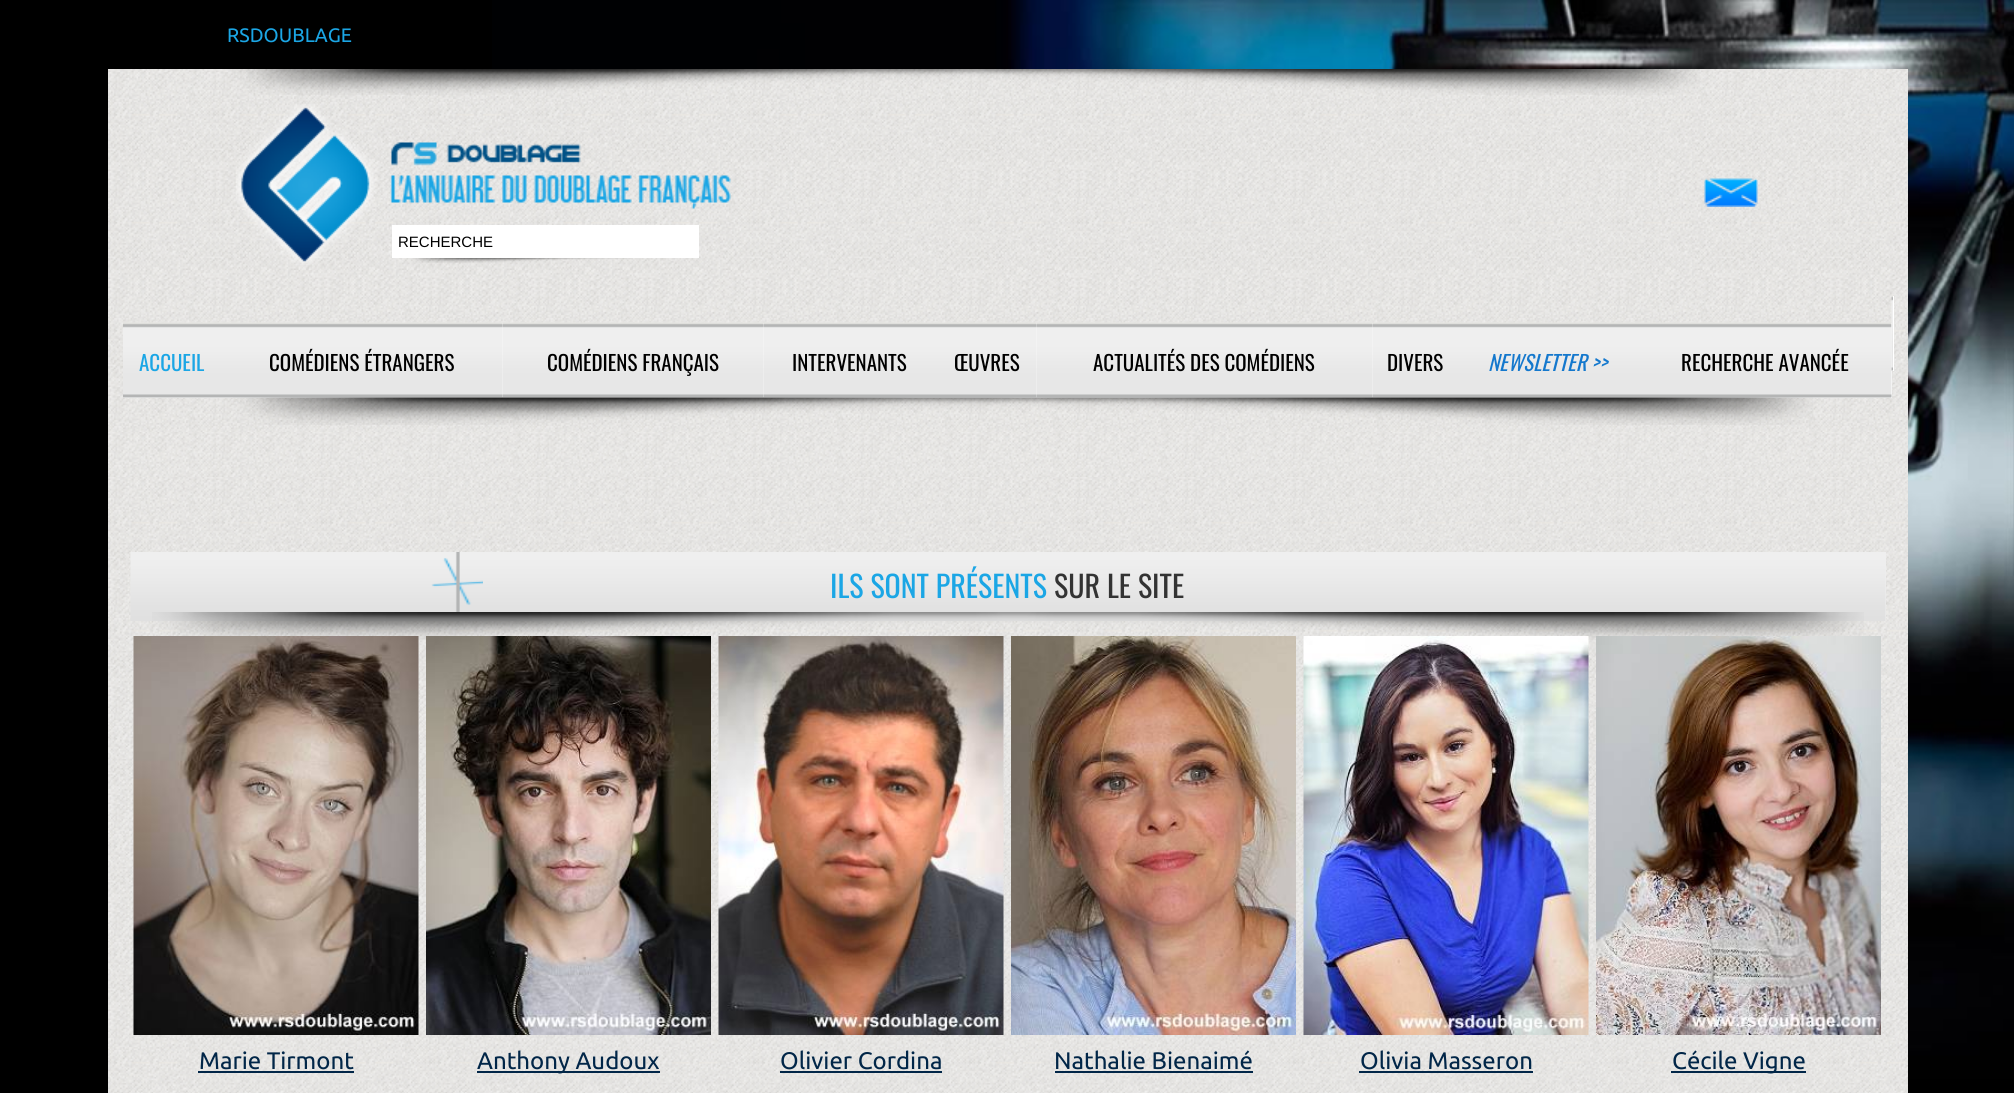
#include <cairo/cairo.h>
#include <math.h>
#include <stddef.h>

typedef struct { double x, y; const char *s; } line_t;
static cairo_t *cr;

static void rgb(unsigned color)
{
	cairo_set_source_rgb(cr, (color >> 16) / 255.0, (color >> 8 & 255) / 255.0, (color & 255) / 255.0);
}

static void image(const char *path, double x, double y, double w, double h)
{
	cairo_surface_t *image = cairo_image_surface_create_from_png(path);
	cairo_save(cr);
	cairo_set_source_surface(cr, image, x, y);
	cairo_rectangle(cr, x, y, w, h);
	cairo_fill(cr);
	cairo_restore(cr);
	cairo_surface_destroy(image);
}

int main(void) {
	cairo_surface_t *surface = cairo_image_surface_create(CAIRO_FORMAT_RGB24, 2014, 1093);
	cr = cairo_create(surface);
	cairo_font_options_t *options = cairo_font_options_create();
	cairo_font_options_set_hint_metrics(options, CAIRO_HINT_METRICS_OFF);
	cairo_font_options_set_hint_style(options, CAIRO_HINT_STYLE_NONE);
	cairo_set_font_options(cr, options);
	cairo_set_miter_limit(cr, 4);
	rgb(0x000000);
	cairo_paint(cr);
	image("img/1.png", 492, 0, 1522, 1079);
	image("img/2.png", 108, 69, 1800, 363);
	image("img/3.png", 232, 69, 1468, 26);
	image("img/4.png", 1704, 178, 54, 29);
	image("img/5.png", 236, 104, 495, 161);
	image("img/6.png", 411, 258, 222, 5);
	rgb(0xffffff);
	cairo_rectangle(cr, 392, 225, 307, 33);
	cairo_fill(cr);
	cairo_rectangle(cr, 123, 397, 99, 1);
	cairo_fill(cr);
	image("img/7.png", 123, 322, 99, 76);
	cairo_rectangle(cr, 222, 323, 542, 75);
	cairo_fill(cr);
	image("img/8.png", 222, 322, 281, 76);
	image("img/9.png", 502, 322, 262, 76);
	cairo_rectangle(cr, 764, 397, 172, 1);
	cairo_fill(cr);
	image("img/10.png", 763, 322, 173, 76);
	cairo_rectangle(cr, 936, 323, 437, 75);
	cairo_fill(cr);
	image("img/11.png", 936, 322, 101, 76);
	image("img/12.png", 1036, 322, 337, 76);
	cairo_rectangle(cr, 1373, 397, 265, 1);
	cairo_fill(cr);
	image("img/13.png", 1372, 322, 86, 76);
	image("img/14.png", 1458, 322, 180, 76);
	cairo_rectangle(cr, 1638, 323, 254, 75);
	cairo_fill(cr);
	image("img/15.png", 1638, 322, 254, 76);
	cairo_rectangle(cr, 1892, 296, 2, 75);
	cairo_fill(cr);
	image("img/16.png", 1891, 296, 2, 75);
	image("img/17.png", 233, 397, 1580, 28);
	image("img/18.png", 108, 432, 1800, 45);
	image("img/19.png", 108, 477, 1800, 616);
	rgb(0xeeeeee);
	cairo_rectangle(cr, 1885, 552, 1, 69);
	cairo_fill(cr);
	image("img/20.png", 130, 552, 1756, 69);
	image("img/21.png", 431, 552, 52, 60);
	image("img/22.png", 152, 612, 1712, 28);
	image("img/23.png", 133, 636, 286, 399);
	rgb(0x012648);
	cairo_rectangle(cr, 198, 1071, 156, 2);
	cairo_fill(cr);
	image("img/24.png", 426, 636, 285, 399);
	cairo_rectangle(cr, 477, 1071, 183, 2);
	cairo_fill(cr);
	image("img/25.png", 718, 636, 286, 399);
	cairo_rectangle(cr, 780, 1071, 162, 2);
	cairo_fill(cr);
	image("img/26.png", 1011, 636, 285, 399);
	cairo_rectangle(cr, 1055, 1071, 198, 2);
	cairo_fill(cr);
	image("img/27.png", 1303, 636, 286, 399);
	cairo_rectangle(cr, 1359, 1071, 174, 2);
	cairo_fill(cr);
	image("img/28.png", 1596, 636, 285, 399);
	cairo_rectangle(cr, 1671, 1071, 135, 2);
	cairo_fill(cr);
	cairo_select_font_face(cr, "Ubuntu", CAIRO_FONT_SLANT_NORMAL, CAIRO_FONT_WEIGHT_NORMAL);
	cairo_set_font_size(cr, 19.5);
	rgb(0x1ba6e5);
	cairo_move_to(cr, 227, 42);
	cairo_show_text(cr, "RSDOUBLAGE");
	cairo_select_font_face(cr, "Liberation Sans", CAIRO_FONT_SLANT_NORMAL, CAIRO_FONT_WEIGHT_NORMAL);
	cairo_set_font_size(cr, 15);
	rgb(0x000000);
	cairo_move_to(cr, 398, 247);
	cairo_show_text(cr, "RECHERCHE");
	cairo_select_font_face(cr, "Oswald", CAIRO_FONT_SLANT_NORMAL, CAIRO_FONT_WEIGHT_NORMAL);
	cairo_set_font_size(cr, 21);
	rgb(0x1ba6e5);
	cairo_move_to(cr, 139, 371);
	cairo_show_text(cr, "ACCUEIL");
	rgb(0x000000);
	{
		static const line_t items[] = {
			{269, 371, "COMÉDIENS ÉTRANGERS"},
			{547, 371, "COMÉDIENS FRANÇAIS"},
			{792, 371, "INTERVENANTS"},
			{954, 371, "ŒUVRES"},
			{1093, 371, "ACTUALITÉS DES COMÉDIENS"},
			{1387, 371, "DIVERS"},
		};
		for (size_t i = 0; i < sizeof items / sizeof *items; i++) {
			cairo_move_to(cr, items[i].x, items[i].y);
			cairo_show_text(cr, items[i].s);
		}
	}
	cairo_select_font_face(cr, "Oswald", CAIRO_FONT_SLANT_ITALIC, CAIRO_FONT_WEIGHT_NORMAL);
	rgb(0x1478cd);
	cairo_move_to(cr, 1488, 371);
	cairo_show_text(cr, "NEWSLETTER >>");
	cairo_select_font_face(cr, "Oswald", CAIRO_FONT_SLANT_NORMAL, CAIRO_FONT_WEIGHT_NORMAL);
	rgb(0x000000);
	cairo_move_to(cr, 1681, 371);
	cairo_show_text(cr, "RECHERCHE AVANCÉE");
	cairo_set_font_size(cr, 30);
	rgb(0x1ba6e5);
	cairo_move_to(cr, 830, 598);
	cairo_show_text(cr, "ILS SONT PRÉSENTS");
	rgb(0x333333);
	cairo_move_to(cr, 1054, 598);
	cairo_show_text(cr, "SUR LE SITE");
	cairo_select_font_face(cr, "Ubuntu", CAIRO_FONT_SLANT_NORMAL, CAIRO_FONT_WEIGHT_NORMAL);
	cairo_set_font_size(cr, 24);
	rgb(0x012648);
	{
		static const line_t items[] = {
			{199, 1069, "Marie Tirmont"},
			{477, 1069, "Anthony Audoux"},
			{780, 1069, "Olivier Cordina"},
			{1054, 1069, "Nathalie Bienaimé"},
			{1360, 1069, "Olivia Masseron"},
			{1672, 1069, "Cécile Vigne"},
		};
		for (size_t i = 0; i < sizeof items / sizeof *items; i++) {
			cairo_move_to(cr, items[i].x, items[i].y);
			cairo_show_text(cr, items[i].s);
		}
	}
	cairo_surface_write_to_png(surface, "page.png");
	cairo_font_options_destroy(options);
	cairo_destroy(cr);
	cairo_surface_destroy(surface);
	return 0;
}
